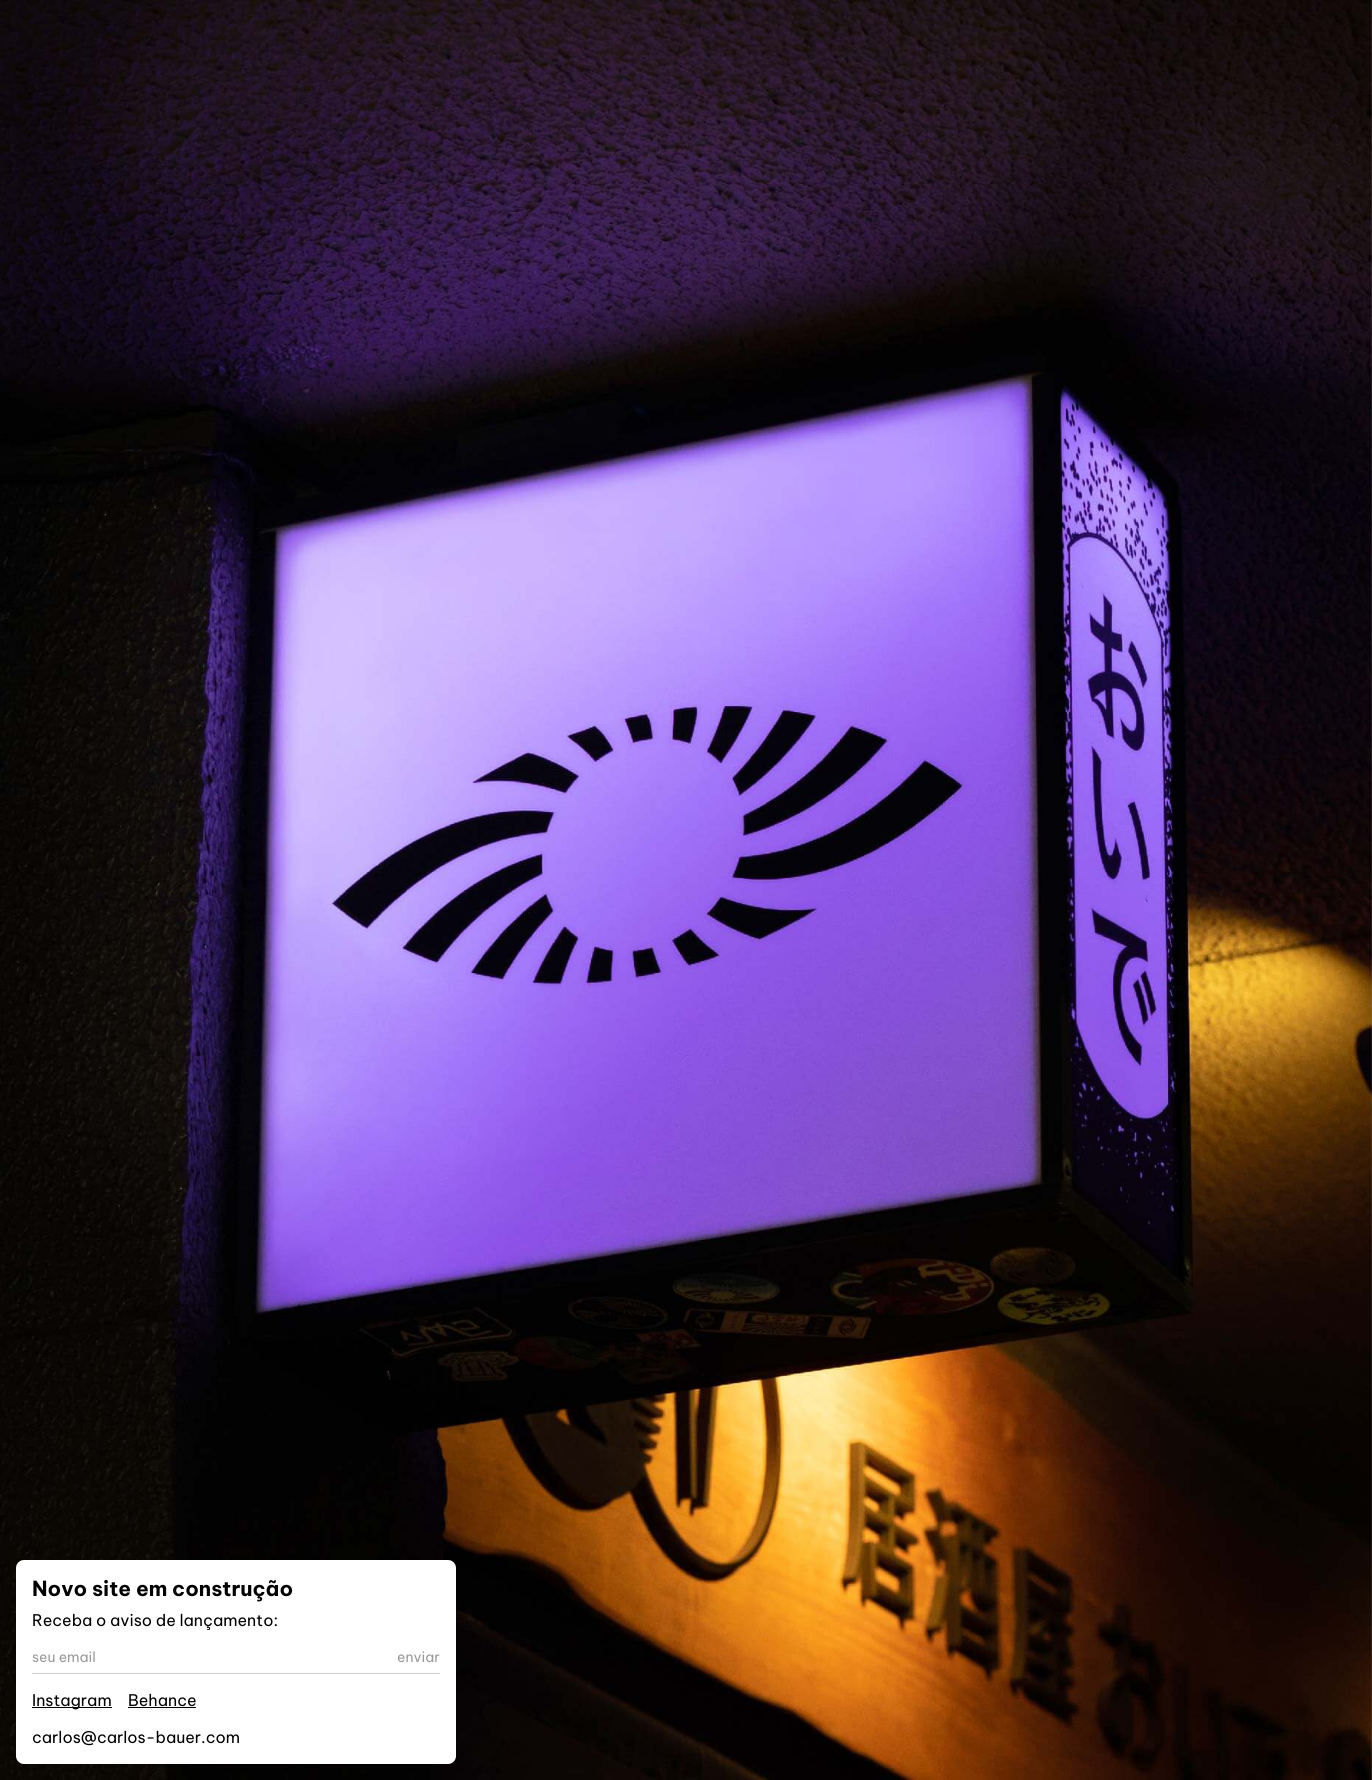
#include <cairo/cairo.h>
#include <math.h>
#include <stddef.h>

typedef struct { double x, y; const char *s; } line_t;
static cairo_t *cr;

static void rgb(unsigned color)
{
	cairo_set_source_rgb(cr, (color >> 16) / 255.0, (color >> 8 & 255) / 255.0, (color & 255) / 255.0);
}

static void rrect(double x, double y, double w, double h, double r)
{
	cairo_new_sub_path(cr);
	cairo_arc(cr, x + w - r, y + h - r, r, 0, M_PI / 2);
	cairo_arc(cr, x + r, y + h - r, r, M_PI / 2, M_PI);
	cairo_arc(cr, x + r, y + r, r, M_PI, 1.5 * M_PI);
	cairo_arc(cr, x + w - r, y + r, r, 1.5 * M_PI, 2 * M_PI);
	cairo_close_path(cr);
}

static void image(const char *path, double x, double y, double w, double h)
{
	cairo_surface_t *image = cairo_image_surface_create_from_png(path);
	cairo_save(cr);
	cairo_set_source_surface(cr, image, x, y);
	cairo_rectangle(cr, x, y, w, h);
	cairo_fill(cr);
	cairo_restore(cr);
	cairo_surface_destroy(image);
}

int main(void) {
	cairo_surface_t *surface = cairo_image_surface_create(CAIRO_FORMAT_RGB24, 1372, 1780);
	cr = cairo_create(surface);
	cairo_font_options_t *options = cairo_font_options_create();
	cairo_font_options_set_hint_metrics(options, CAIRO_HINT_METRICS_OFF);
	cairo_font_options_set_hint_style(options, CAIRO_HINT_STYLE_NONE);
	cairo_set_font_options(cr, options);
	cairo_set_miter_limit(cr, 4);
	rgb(0xffffff);
	cairo_paint(cr);
	image("img/1.png", 0, 0, 1372, 1780);
	rgb(0xffffff);
	rrect(16, 1560, 440, 204, 8);
	cairo_fill(cr);
	rgb(0x000000);
	cairo_rectangle(cr, 32, 1707, 80, 1);
	cairo_fill(cr);
	cairo_rectangle(cr, 128, 1707, 68, 1);
	cairo_fill(cr);
	cairo_select_font_face(cr, "Be Vietnam Pro", CAIRO_FONT_SLANT_NORMAL, CAIRO_FONT_WEIGHT_BOLD);
	cairo_set_font_size(cr, 20.75);
	cairo_move_to(cr, 32, 1596);
	cairo_show_text(cr, "Novo site em construção");
	cairo_select_font_face(cr, "Be Vietnam Pro", CAIRO_FONT_SLANT_NORMAL, CAIRO_FONT_WEIGHT_NORMAL);
	cairo_set_font_size(cr, 16);
	cairo_move_to(cr, 32, 1626);
	cairo_show_text(cr, "Receba o aviso de lançamento:");
	rgb(0xffffff);
	rrect(32, 1630, 408, 44, 3);
	cairo_fill(cr);
	rgb(0xcccccc);
	cairo_rectangle(cr, 32, 1673, 408, 1);
	cairo_fill(cr);
	cairo_set_font_size(cr, 14);
	rgb(0x999999);
	cairo_move_to(cr, 32, 1662);
	cairo_show_text(cr, "seu email");
	cairo_move_to(cr, 397, 1662);
	cairo_show_text(cr, "enviar");
	cairo_set_font_size(cr, 16);
	rgb(0x000000);
	{
		static const line_t items[] = {
			{32, 1706, "Instagram"},
			{128, 1706, "Behance"},
			{32, 1743, "carlos@carlos-bauer.com"},
		};
		for (size_t i = 0; i < sizeof items / sizeof *items; i++) {
			cairo_move_to(cr, items[i].x, items[i].y);
			cairo_show_text(cr, items[i].s);
		}
	}
	cairo_surface_write_to_png(surface, "page.png");
	cairo_font_options_destroy(options);
	cairo_destroy(cr);
	cairo_surface_destroy(surface);
	return 0;
}
